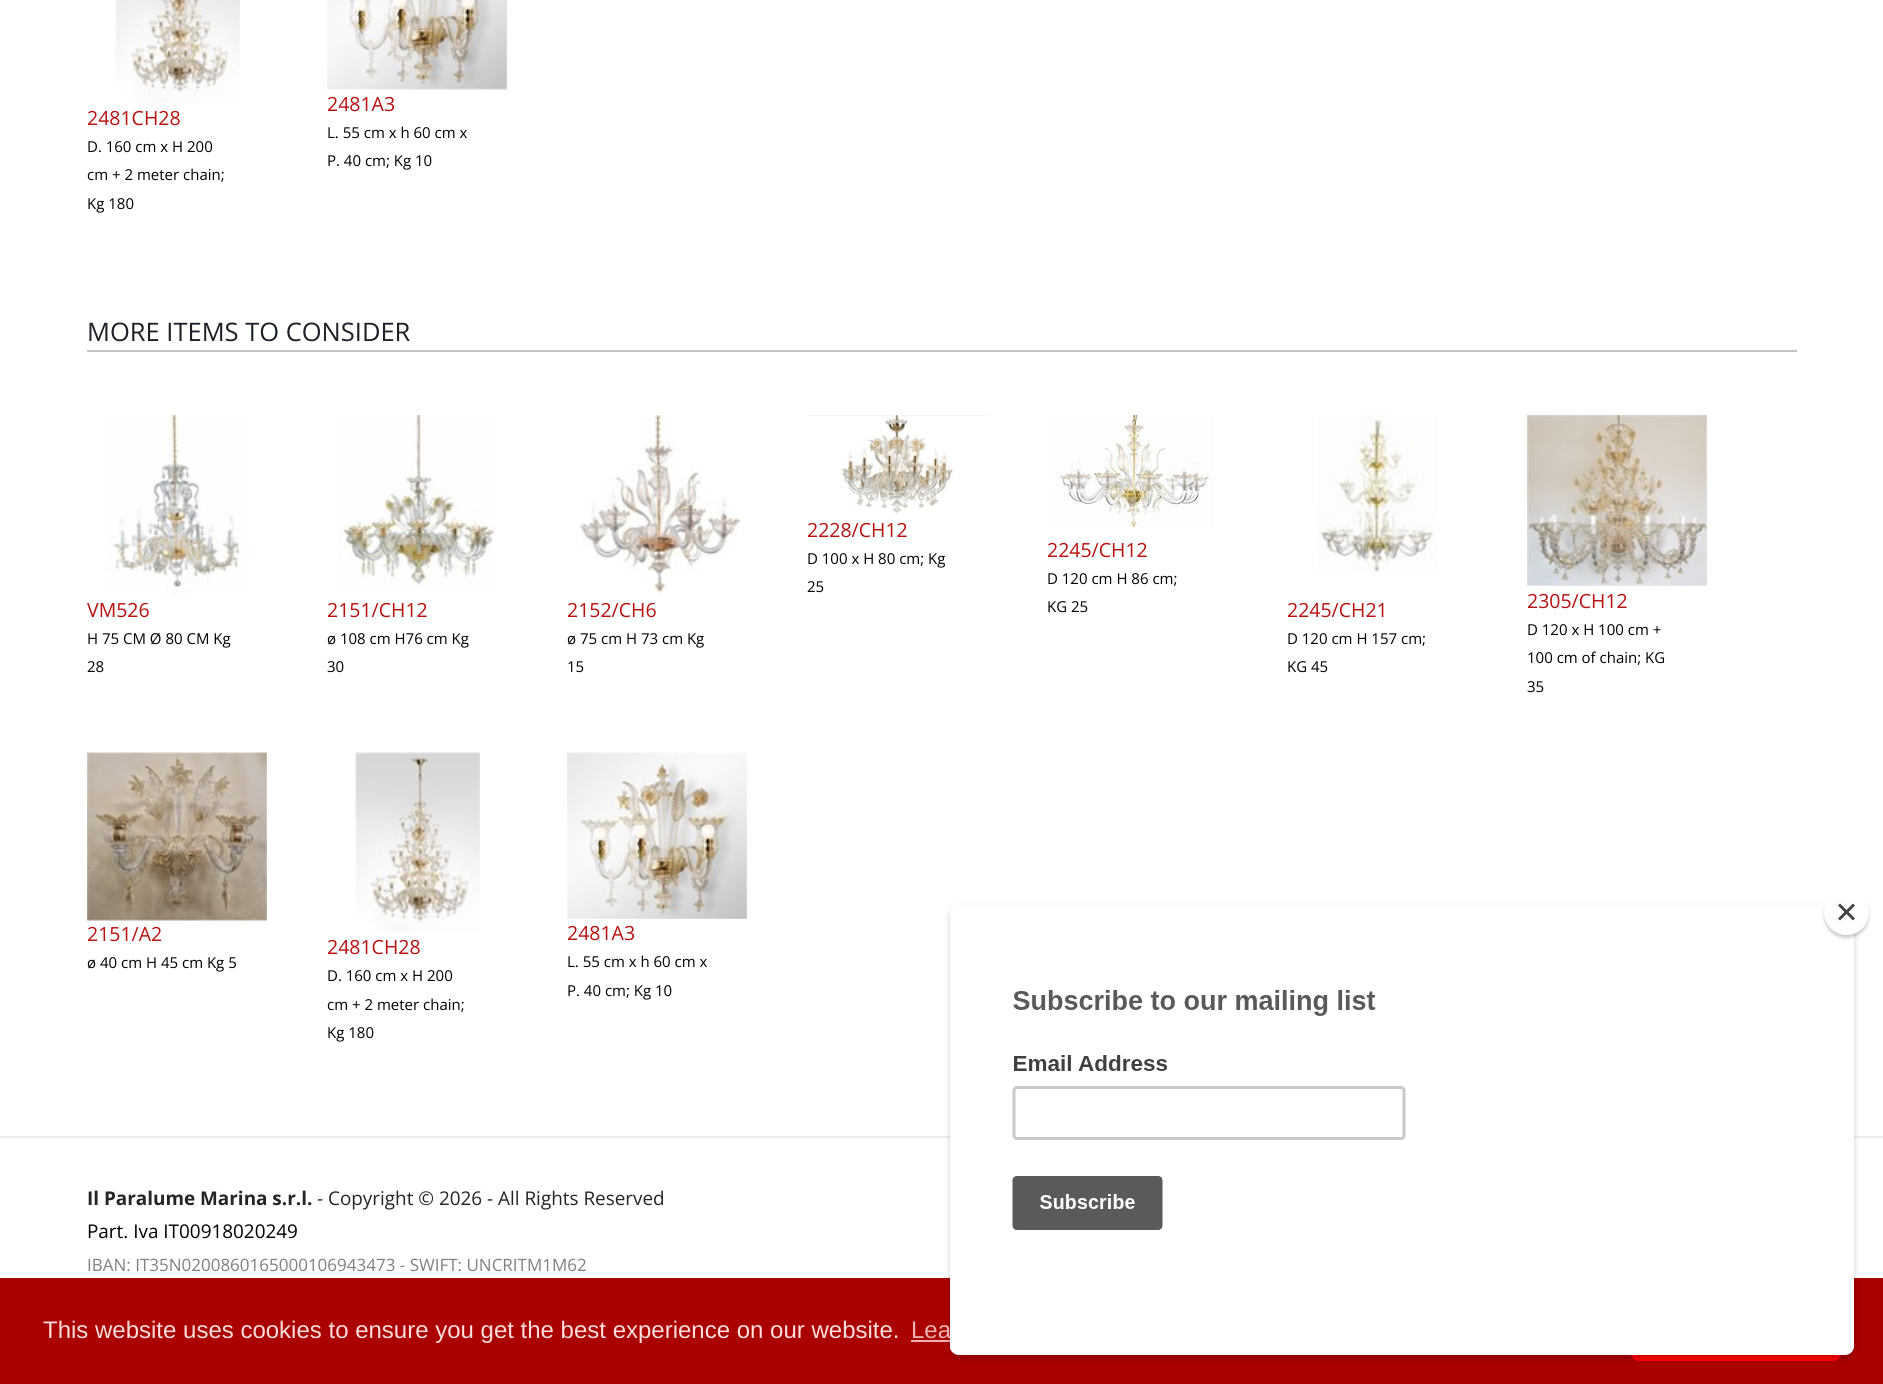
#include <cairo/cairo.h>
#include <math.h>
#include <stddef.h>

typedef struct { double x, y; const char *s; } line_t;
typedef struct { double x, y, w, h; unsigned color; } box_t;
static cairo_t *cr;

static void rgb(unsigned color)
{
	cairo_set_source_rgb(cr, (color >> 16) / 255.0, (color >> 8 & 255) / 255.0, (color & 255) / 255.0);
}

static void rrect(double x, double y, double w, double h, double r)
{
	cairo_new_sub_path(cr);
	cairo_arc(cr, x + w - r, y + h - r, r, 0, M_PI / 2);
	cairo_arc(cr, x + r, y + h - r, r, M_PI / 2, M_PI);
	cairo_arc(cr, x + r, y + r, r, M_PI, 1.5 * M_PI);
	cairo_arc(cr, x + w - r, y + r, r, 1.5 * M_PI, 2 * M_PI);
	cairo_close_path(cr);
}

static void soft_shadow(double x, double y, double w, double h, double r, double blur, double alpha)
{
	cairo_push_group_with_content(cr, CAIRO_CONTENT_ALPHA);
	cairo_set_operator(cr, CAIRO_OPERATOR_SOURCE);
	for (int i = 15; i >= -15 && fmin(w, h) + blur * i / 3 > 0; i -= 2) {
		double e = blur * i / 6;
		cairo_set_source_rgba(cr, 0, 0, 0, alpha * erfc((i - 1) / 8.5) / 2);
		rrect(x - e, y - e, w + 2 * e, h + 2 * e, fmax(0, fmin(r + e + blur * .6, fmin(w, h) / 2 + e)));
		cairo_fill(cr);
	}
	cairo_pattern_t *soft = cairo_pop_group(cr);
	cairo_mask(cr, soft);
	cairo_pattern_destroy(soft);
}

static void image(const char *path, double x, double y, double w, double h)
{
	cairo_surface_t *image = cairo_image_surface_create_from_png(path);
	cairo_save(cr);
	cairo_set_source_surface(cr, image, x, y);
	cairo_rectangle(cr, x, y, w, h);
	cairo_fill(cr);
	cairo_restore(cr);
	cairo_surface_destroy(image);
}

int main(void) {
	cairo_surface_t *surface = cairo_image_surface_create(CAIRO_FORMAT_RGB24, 1883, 1384);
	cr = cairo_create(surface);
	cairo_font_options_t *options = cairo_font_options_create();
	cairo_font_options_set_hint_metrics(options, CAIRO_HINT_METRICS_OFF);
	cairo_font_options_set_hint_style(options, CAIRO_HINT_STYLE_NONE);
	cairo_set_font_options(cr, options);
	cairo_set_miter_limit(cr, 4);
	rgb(0xffffff);
	cairo_paint(cr);
	image("img/1.png", 115, 0, 125, 103);
	image("img/2.png", 327, 0, 180, 90);
	rgb(0xc4c4c4);
	cairo_rectangle(cr, 87, 350, 1710, 2);
	cairo_fill(cr);
	image("img/3.png", 807, 415, 180, 99);
	image("img/4.png", 1055, 415, 160, 113);
	image("img/5.png", 105, 415, 144, 179);
	image("img/6.png", 337, 415, 159, 171);
	image("img/7.png", 579, 415, 162, 180);
	image("img/8.png", 1317, 415, 120, 160);
	image("img/9.png", 1527, 415, 180, 171);
	image("img/10.png", 87, 752, 180, 169);
	image("img/11.png", 355, 752, 125, 180);
	image("img/12.png", 567, 752, 180, 167);
	{
		static const box_t items[] = {
			{0, 1136, 1883, 2, 0xececec},
			{0, 1278, 1883, 106, 0xaa0000},
			{911, 1340, 39, 2, 0xeeb1b1},
		};
		for (size_t i = 0; i < sizeof items / sizeof *items; i++) {
			rgb(items[i].color);
			cairo_rectangle(cr, items[i].x, items[i].y, items[i].w, items[i].h);
			cairo_fill(cr);
		}
	}
	rgb(0xff0000);
	rrect(1631, 1302, 210, 59, 8);
	cairo_fill(cr);
	rgb(0x000000);
	soft_shadow(950, 908, 904, 450, 9, 3, 0.2);
	cairo_select_font_face(cr, "Open Sans", CAIRO_FONT_SLANT_NORMAL, CAIRO_FONT_WEIGHT_NORMAL);
	cairo_set_font_size(cr, 19.5);
	rgb(0xb91010);
	cairo_move_to(cr, 87, 125);
	cairo_show_text(cr, "2481CH28");
	cairo_set_font_size(cr, 15);
	rgb(0x000000);
	{
		static const line_t items[] = {
			{87, 152, "D. 160 cm x H 200"},
			{87, 180, "cm + 2 meter chain;"},
			{87, 209, "Kg 180"},
		};
		for (size_t i = 0; i < sizeof items / sizeof *items; i++) {
			cairo_move_to(cr, items[i].x, items[i].y);
			cairo_show_text(cr, items[i].s);
		}
	}
	cairo_set_font_size(cr, 19.5);
	rgb(0xb91010);
	cairo_move_to(cr, 327, 111);
	cairo_show_text(cr, "2481A3");
	cairo_set_font_size(cr, 15);
	rgb(0x000000);
	cairo_move_to(cr, 327, 138);
	cairo_show_text(cr, "L. 55 cm x h 60 cm x");
	cairo_move_to(cr, 327, 166);
	cairo_show_text(cr, "P. 40 cm; Kg 10");
	cairo_set_font_size(cr, 25.5);
	rgb(0x1d2127);
	cairo_move_to(cr, 87, 341);
	cairo_show_text(cr, "MORE ITEMS TO CONSIDER");
	cairo_set_font_size(cr, 19.5);
	rgb(0xb91010);
	cairo_move_to(cr, 807, 537);
	cairo_show_text(cr, "2228/CH12");
	cairo_set_font_size(cr, 15);
	rgb(0x000000);
	cairo_move_to(cr, 807, 564);
	cairo_show_text(cr, "D 100 x H 80 cm; Kg");
	cairo_move_to(cr, 807, 592);
	cairo_show_text(cr, "25");
	cairo_set_font_size(cr, 19.5);
	rgb(0xb91010);
	cairo_move_to(cr, 1047, 557);
	cairo_show_text(cr, "2245/CH12");
	cairo_set_font_size(cr, 15);
	rgb(0x000000);
	cairo_move_to(cr, 1047, 584);
	cairo_show_text(cr, "D 120 cm H 86 cm;");
	cairo_move_to(cr, 1047, 612);
	cairo_show_text(cr, "KG 25");
	cairo_set_font_size(cr, 19.5);
	rgb(0xb91010);
	cairo_move_to(cr, 87, 617);
	cairo_show_text(cr, "VM526");
	cairo_set_font_size(cr, 15);
	rgb(0x000000);
	cairo_move_to(cr, 87, 644);
	cairo_show_text(cr, "H 75 CM Ø 80 CM Kg");
	cairo_move_to(cr, 87, 672);
	cairo_show_text(cr, "28");
	cairo_set_font_size(cr, 19.5);
	rgb(0xb91010);
	cairo_move_to(cr, 327, 617);
	cairo_show_text(cr, "2151/CH12");
	cairo_set_font_size(cr, 15);
	rgb(0x000000);
	cairo_move_to(cr, 327, 644);
	cairo_show_text(cr, "ø 108 cm H76 cm Kg");
	cairo_move_to(cr, 327, 672);
	cairo_show_text(cr, "30");
	cairo_set_font_size(cr, 19.5);
	rgb(0xb91010);
	cairo_move_to(cr, 567, 617);
	cairo_show_text(cr, "2152/CH6");
	cairo_set_font_size(cr, 15);
	rgb(0x000000);
	cairo_move_to(cr, 567, 644);
	cairo_show_text(cr, "ø 75 cm H 73 cm Kg");
	cairo_move_to(cr, 567, 672);
	cairo_show_text(cr, "15");
	cairo_set_font_size(cr, 19.5);
	rgb(0xb91010);
	cairo_move_to(cr, 1287, 617);
	cairo_show_text(cr, "2245/CH21");
	cairo_set_font_size(cr, 15);
	rgb(0x000000);
	cairo_move_to(cr, 1287, 644);
	cairo_show_text(cr, "D 120 cm H 157 cm;");
	cairo_move_to(cr, 1287, 672);
	cairo_show_text(cr, "KG 45");
	cairo_set_font_size(cr, 19.5);
	rgb(0xb91010);
	cairo_move_to(cr, 1527, 608);
	cairo_show_text(cr, "2305/CH12");
	cairo_set_font_size(cr, 15);
	rgb(0x000000);
	{
		static const line_t items[] = {
			{1527, 635, "D 120 x H 100 cm +"},
			{1527, 663, "100 cm of chain; KG"},
			{1527, 692, "35"},
		};
		for (size_t i = 0; i < sizeof items / sizeof *items; i++) {
			cairo_move_to(cr, items[i].x, items[i].y);
			cairo_show_text(cr, items[i].s);
		}
	}
	cairo_set_font_size(cr, 19.5);
	rgb(0xb91010);
	cairo_move_to(cr, 87, 941);
	cairo_show_text(cr, "2151/A2");
	cairo_set_font_size(cr, 15);
	rgb(0x000000);
	cairo_move_to(cr, 87, 968);
	cairo_show_text(cr, "ø 40 cm H 45 cm Kg 5");
	cairo_set_font_size(cr, 19.5);
	rgb(0xb91010);
	cairo_move_to(cr, 327, 954);
	cairo_show_text(cr, "2481CH28");
	cairo_set_font_size(cr, 15);
	rgb(0x000000);
	{
		static const line_t items[] = {
			{327, 981, "D. 160 cm x H 200"},
			{327, 1010, "cm + 2 meter chain;"},
			{327, 1038, "Kg 180"},
		};
		for (size_t i = 0; i < sizeof items / sizeof *items; i++) {
			cairo_move_to(cr, items[i].x, items[i].y);
			cairo_show_text(cr, items[i].s);
		}
	}
	cairo_set_font_size(cr, 19.5);
	rgb(0xb91010);
	cairo_move_to(cr, 567, 940);
	cairo_show_text(cr, "2481A3");
	cairo_set_font_size(cr, 15);
	rgb(0x000000);
	cairo_move_to(cr, 567, 967);
	cairo_show_text(cr, "L. 55 cm x h 60 cm x");
	cairo_move_to(cr, 567, 996);
	cairo_show_text(cr, "P. 40 cm; Kg 10");
	cairo_select_font_face(cr, "Open Sans", CAIRO_FONT_SLANT_NORMAL, CAIRO_FONT_WEIGHT_BOLD);
	cairo_set_font_size(cr, 18.9);
	rgb(0x252525);
	cairo_move_to(cr, 87, 1205);
	cairo_show_text(cr, "Il Paralume Marina s.r.l.");
	cairo_select_font_face(cr, "Open Sans", CAIRO_FONT_SLANT_NORMAL, CAIRO_FONT_WEIGHT_NORMAL);
	cairo_move_to(cr, 317, 1205);
	cairo_show_text(cr, "- Copyright © 2026 - All Rights Reserved");
	rgb(0x000000);
	cairo_move_to(cr, 87, 1238);
	cairo_show_text(cr, "Part. Iva IT00918020249");
	cairo_set_font_size(cr, 17);
	rgb(0x808080);
	cairo_move_to(cr, 87, 1271);
	cairo_show_text(cr, "IBAN: IT35N0200860165000106943473 - SWIFT: UNCRITM1M62");
	cairo_select_font_face(cr, "Liberation Sans", CAIRO_FONT_SLANT_NORMAL, CAIRO_FONT_WEIGHT_NORMAL);
	cairo_set_font_size(cr, 24);
	rgb(0xffdddd);
	cairo_move_to(cr, 43, 1338);
	cairo_show_text(cr, "This website uses cookies to ensure you get the best experience on our website.");
	rgb(0xeeb1b1);
	cairo_move_to(cr, 911, 1338);
	cairo_show_text(cr, "Lea");
	rgb(0xffffff);
	rrect(950, 905, 904, 450, 9);
	cairo_fill(cr);
	rgb(0x000000);
	soft_shadow(1824, 893, 45, 45, 22.5, 1.5, 0.2);
	rgb(0xffffff);
	cairo_arc(cr, 1846.5, 912.5, 22.5, 0, 2 * M_PI);
	cairo_fill(cr);
	rgb(0x414141);
	cairo_new_path(cr);
	cairo_move_to(cr, 1853, 903.5);
	cairo_line_to(cr, 1855, 905.5);
	cairo_line_to(cr, 1840, 920.5);
	cairo_line_to(cr, 1838, 918.5);
	cairo_close_path(cr);
	cairo_fill(cr);
	cairo_new_path(cr);
	cairo_move_to(cr, 1838, 905.5);
	cairo_line_to(cr, 1840, 903.5);
	cairo_line_to(cr, 1855, 918.5);
	cairo_line_to(cr, 1853, 920.5);
	cairo_close_path(cr);
	cairo_fill(cr);
	image("img/13.png", 950, 990, 904, 365);
	cairo_surface_write_to_png(surface, "page.png");
	cairo_font_options_destroy(options);
	cairo_destroy(cr);
	cairo_surface_destroy(surface);
	return 0;
}
